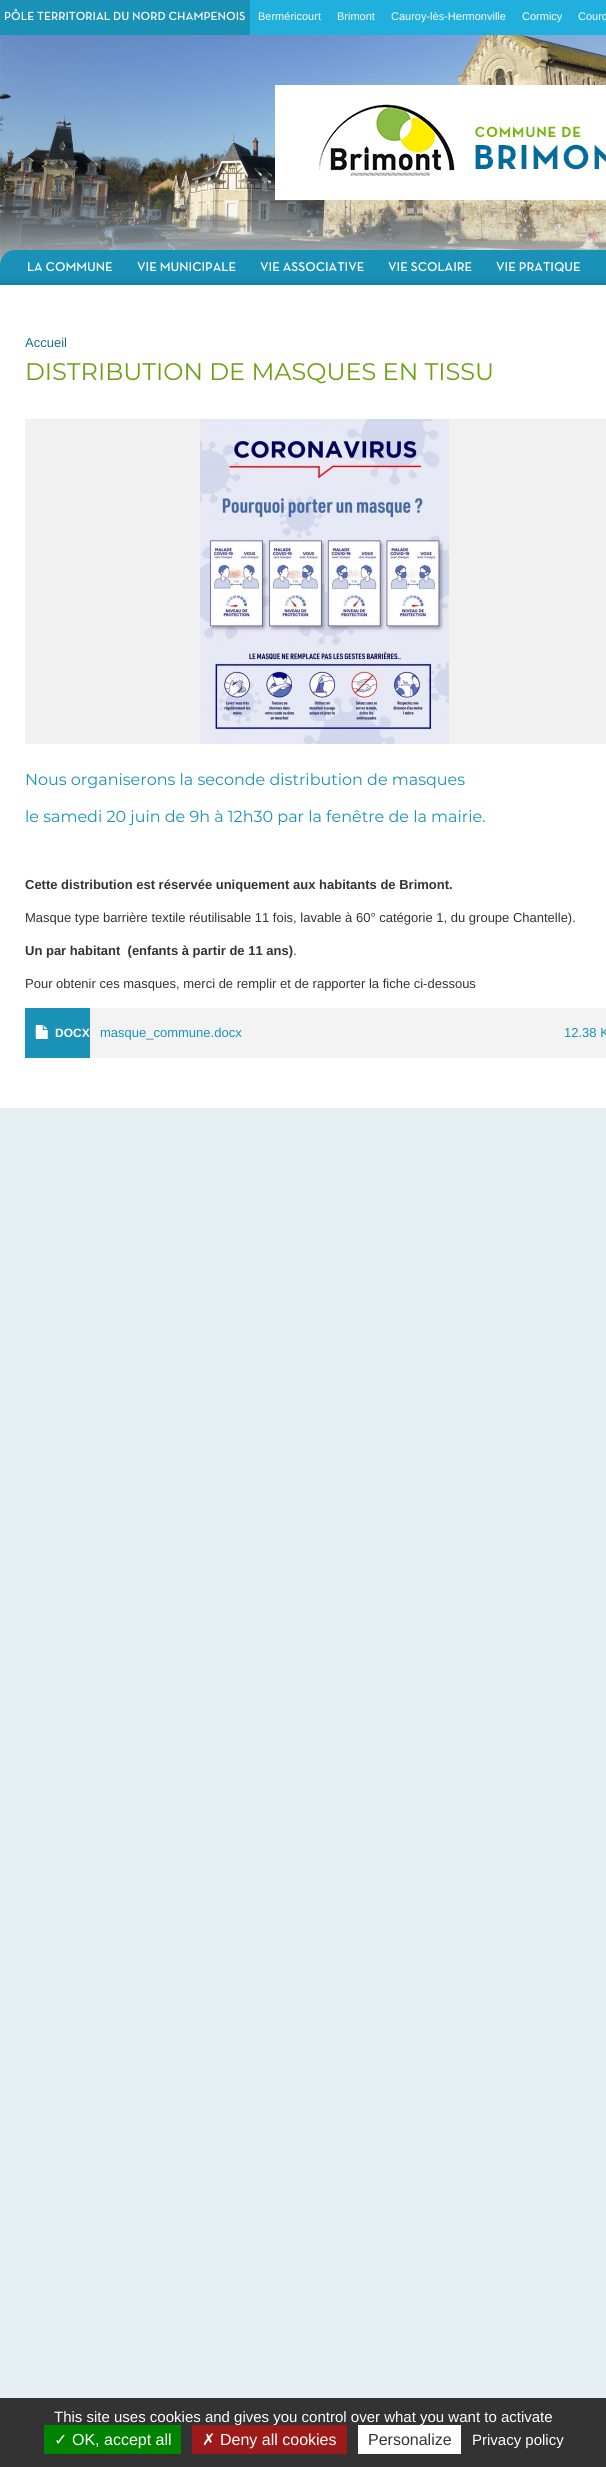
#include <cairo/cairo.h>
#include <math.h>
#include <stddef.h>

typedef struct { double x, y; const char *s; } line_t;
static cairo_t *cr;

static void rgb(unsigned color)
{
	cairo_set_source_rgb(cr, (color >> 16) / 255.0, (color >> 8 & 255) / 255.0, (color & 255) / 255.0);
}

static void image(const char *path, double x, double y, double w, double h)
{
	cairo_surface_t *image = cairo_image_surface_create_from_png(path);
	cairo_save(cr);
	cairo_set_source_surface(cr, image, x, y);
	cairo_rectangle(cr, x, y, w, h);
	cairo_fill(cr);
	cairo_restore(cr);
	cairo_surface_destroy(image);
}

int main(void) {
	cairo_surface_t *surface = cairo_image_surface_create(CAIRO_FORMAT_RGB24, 606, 2467);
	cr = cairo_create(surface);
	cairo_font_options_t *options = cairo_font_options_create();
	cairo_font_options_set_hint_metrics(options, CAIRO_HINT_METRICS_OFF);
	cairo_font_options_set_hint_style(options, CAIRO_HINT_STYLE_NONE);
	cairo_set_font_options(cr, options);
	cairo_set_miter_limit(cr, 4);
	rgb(0xe6eff2);
	cairo_paint(cr);
	rgb(0x21b0dd);
	cairo_rectangle(cr, 250, 0, 356, 35);
	cairo_fill(cr);
	rgb(0x1a92b8);
	cairo_rectangle(cr, 0, 0, 250, 35);
	cairo_fill(cr);
	image("img/1.png", 0, 35, 606, 230);
	image("img/2.png", 275, 85, 331, 115);
	image("img/3.png", 0, 250, 606, 35);
	rgb(0xffffff);
	cairo_rectangle(cr, 0, 285, 606, 823);
	cairo_fill(cr);
	image("img/4.png", 25, 419, 581, 325);
	rgb(0xf3f3f3);
	cairo_rectangle(cr, 90, 1008, 516, 50);
	cairo_fill(cr);
	rgb(0x1a92b8);
	cairo_rectangle(cr, 25, 1008, 65, 50);
	cairo_fill(cr);
	image("img/5.png", 35, 1025, 13, 14);
	rgb(0x333333);
	cairo_rectangle(cr, 0, 2398, 606, 69);
	cairo_fill(cr);
	rgb(0xffffff);
	cairo_rectangle(cr, 358, 2425, 103, 29);
	cairo_fill(cr);
	cairo_select_font_face(cr, "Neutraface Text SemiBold", CAIRO_FONT_SLANT_NORMAL, CAIRO_FONT_WEIGHT_NORMAL);
	cairo_set_font_size(cr, 12);
	cairo_move_to(cr, 4, 20);
	cairo_show_text(cr, "PÔLE TERRITORIAL DU NORD CHAMPENOIS");
	cairo_select_font_face(cr, "Liberation Sans", CAIRO_FONT_SLANT_NORMAL, CAIRO_FONT_WEIGHT_NORMAL);
	cairo_set_font_size(cr, 11);
	{
		static const line_t items[] = {
			{258, 20, "Berméricourt"},
			{337, 20, "Brimont"},
			{391, 20, "Cauroy-lès-Hermonville"},
			{522, 20, "Cormicy"},
			{578, 20, "Courc"},
		};
		for (size_t i = 0; i < sizeof items / sizeof *items; i++) {
			cairo_move_to(cr, items[i].x, items[i].y);
			cairo_show_text(cr, items[i].s);
		}
	}
	cairo_select_font_face(cr, "Neutraface Text SemiBold", CAIRO_FONT_SLANT_NORMAL, CAIRO_FONT_WEIGHT_NORMAL);
	cairo_set_font_size(cr, 13);
	{
		static const line_t items[] = {
			{27, 271, "LA COMMUNE"},
			{137, 271, "VIE MUNICIPALE"},
			{260, 271, "VIE ASSOCIATIVE"},
			{388, 271, "VIE SCOLAIRE"},
			{496, 271, "VIE PRATIQUE"},
		};
		for (size_t i = 0; i < sizeof items / sizeof *items; i++) {
			cairo_move_to(cr, items[i].x, items[i].y);
			cairo_show_text(cr, items[i].s);
		}
	}
	cairo_select_font_face(cr, "Liberation Sans", CAIRO_FONT_SLANT_NORMAL, CAIRO_FONT_WEIGHT_NORMAL);
	rgb(0x1e6c84);
	cairo_move_to(cr, 25, 347);
	cairo_show_text(cr, "Accueil");
	cairo_select_font_face(cr, "Montserrat", CAIRO_FONT_SLANT_NORMAL, CAIRO_FONT_WEIGHT_NORMAL);
	cairo_set_font_size(cr, 24);
	rgb(0x6e9f13);
	cairo_move_to(cr, 25, 380);
	cairo_show_text(cr, "DISTRIBUTION DE MASQUES EN TISSU");
	cairo_set_font_size(cr, 16);
	rgb(0x1a92b9);
	cairo_move_to(cr, 25, 785);
	cairo_show_text(cr, "Nous organiserons la seconde distribution de masques");
	cairo_move_to(cr, 25, 822);
	cairo_show_text(cr, "le samedi 20 juin de 9h à 12h30 par la fenêtre de la mairie.");
	cairo_select_font_face(cr, "Liberation Sans", CAIRO_FONT_SLANT_NORMAL, CAIRO_FONT_WEIGHT_BOLD);
	cairo_set_font_size(cr, 13);
	rgb(0x333333);
	cairo_move_to(cr, 25, 889);
	cairo_show_text(cr, "Cette distribution est réservée uniquement aux habitants de Brimont.");
	cairo_select_font_face(cr, "Liberation Sans", CAIRO_FONT_SLANT_NORMAL, CAIRO_FONT_WEIGHT_NORMAL);
	cairo_move_to(cr, 25, 922);
	cairo_show_text(cr, "Masque type barrière textile réutilisable 11 fois, lavable à 60° catégorie 1, du groupe Chantelle).");
	cairo_select_font_face(cr, "Liberation Sans", CAIRO_FONT_SLANT_NORMAL, CAIRO_FONT_WEIGHT_BOLD);
	cairo_move_to(cr, 25, 955);
	cairo_show_text(cr, "Un par habitant  (enfants à partir de 11 ans)");
	cairo_select_font_face(cr, "Liberation Sans", CAIRO_FONT_SLANT_NORMAL, CAIRO_FONT_WEIGHT_NORMAL);
	cairo_move_to(cr, 293, 955);
	cairo_show_text(cr, ".");
	cairo_move_to(cr, 25, 988);
	cairo_show_text(cr, "Pour obtenir ces masques, merci de remplir et de rapporter la fiche ci-dessous");
	cairo_select_font_face(cr, "Liberation Sans", CAIRO_FONT_SLANT_NORMAL, CAIRO_FONT_WEIGHT_BOLD);
	cairo_set_font_size(cr, 12);
	rgb(0xffffff);
	cairo_move_to(cr, 55, 1037);
	cairo_show_text(cr, "DOCX");
	cairo_select_font_face(cr, "Liberation Sans", CAIRO_FONT_SLANT_NORMAL, CAIRO_FONT_WEIGHT_NORMAL);
	cairo_set_font_size(cr, 13);
	rgb(0x1a92b9);
	cairo_move_to(cr, 100, 1037);
	cairo_show_text(cr, "masque_commune.docx");
	cairo_move_to(cr, 564, 1037);
	cairo_show_text(cr, "12.38 K");
	cairo_set_font_size(cr, 15);
	rgb(0xffffff);
	cairo_move_to(cr, 54, 2422);
	cairo_show_text(cr, "This site uses cookies and gives you control over what you want to activate");
	rgb(0x008300);
	cairo_rectangle(cr, 44, 2425, 137, 29);
	cairo_fill(cr);
	cairo_select_font_face(cr, "DejaVu Sans", CAIRO_FONT_SLANT_NORMAL, CAIRO_FONT_WEIGHT_NORMAL);
	cairo_set_font_size(cr, 16);
	rgb(0xffffff);
	cairo_move_to(cr, 54, 2445);
	cairo_show_text(cr, "✓");
	cairo_select_font_face(cr, "Liberation Sans", CAIRO_FONT_SLANT_NORMAL, CAIRO_FONT_WEIGHT_NORMAL);
	cairo_move_to(cr, 72, 2445);
	cairo_show_text(cr, "OK, accept all");
	rgb(0x9c1a1a);
	cairo_rectangle(cr, 192, 2425, 155, 29);
	cairo_fill(cr);
	cairo_select_font_face(cr, "DejaVu Sans", CAIRO_FONT_SLANT_NORMAL, CAIRO_FONT_WEIGHT_NORMAL);
	rgb(0xffffff);
	cairo_move_to(cr, 202, 2445);
	cairo_show_text(cr, "✗");
	cairo_select_font_face(cr, "Liberation Sans", CAIRO_FONT_SLANT_NORMAL, CAIRO_FONT_WEIGHT_NORMAL);
	cairo_move_to(cr, 220, 2445);
	cairo_show_text(cr, "Deny all cookies");
	rgb(0x333333);
	cairo_move_to(cr, 368, 2445);
	cairo_show_text(cr, "Personalize");
	cairo_set_font_size(cr, 15);
	rgb(0xffffff);
	cairo_move_to(cr, 472, 2445);
	cairo_show_text(cr, "Privacy policy");
	cairo_surface_write_to_png(surface, "page.png");
	cairo_font_options_destroy(options);
	cairo_destroy(cr);
	cairo_surface_destroy(surface);
	return 0;
}
